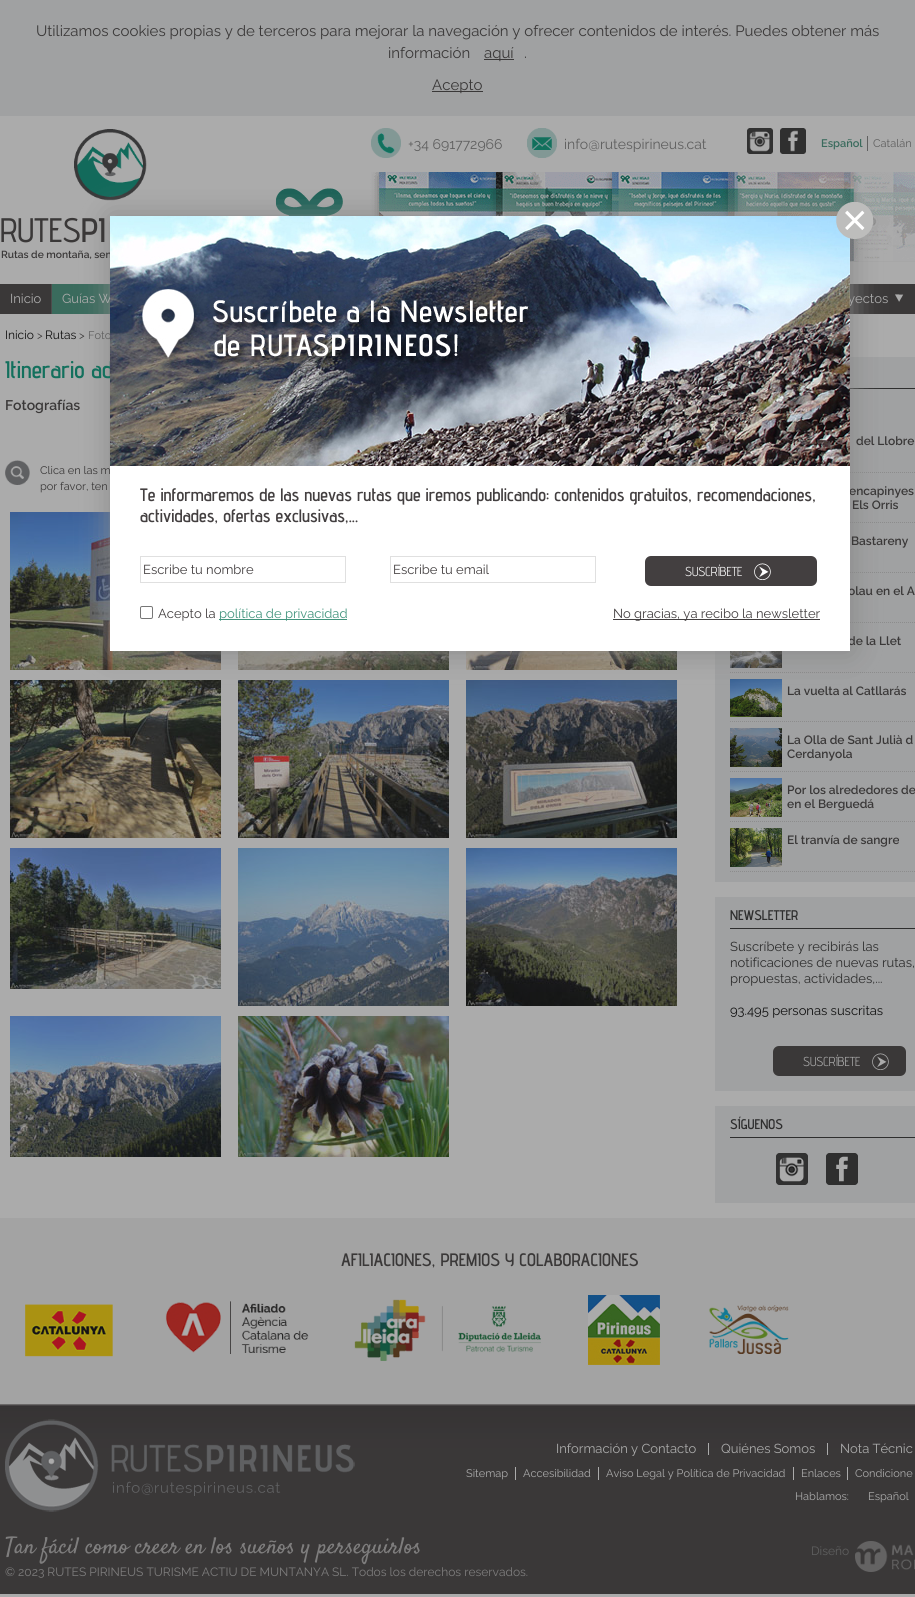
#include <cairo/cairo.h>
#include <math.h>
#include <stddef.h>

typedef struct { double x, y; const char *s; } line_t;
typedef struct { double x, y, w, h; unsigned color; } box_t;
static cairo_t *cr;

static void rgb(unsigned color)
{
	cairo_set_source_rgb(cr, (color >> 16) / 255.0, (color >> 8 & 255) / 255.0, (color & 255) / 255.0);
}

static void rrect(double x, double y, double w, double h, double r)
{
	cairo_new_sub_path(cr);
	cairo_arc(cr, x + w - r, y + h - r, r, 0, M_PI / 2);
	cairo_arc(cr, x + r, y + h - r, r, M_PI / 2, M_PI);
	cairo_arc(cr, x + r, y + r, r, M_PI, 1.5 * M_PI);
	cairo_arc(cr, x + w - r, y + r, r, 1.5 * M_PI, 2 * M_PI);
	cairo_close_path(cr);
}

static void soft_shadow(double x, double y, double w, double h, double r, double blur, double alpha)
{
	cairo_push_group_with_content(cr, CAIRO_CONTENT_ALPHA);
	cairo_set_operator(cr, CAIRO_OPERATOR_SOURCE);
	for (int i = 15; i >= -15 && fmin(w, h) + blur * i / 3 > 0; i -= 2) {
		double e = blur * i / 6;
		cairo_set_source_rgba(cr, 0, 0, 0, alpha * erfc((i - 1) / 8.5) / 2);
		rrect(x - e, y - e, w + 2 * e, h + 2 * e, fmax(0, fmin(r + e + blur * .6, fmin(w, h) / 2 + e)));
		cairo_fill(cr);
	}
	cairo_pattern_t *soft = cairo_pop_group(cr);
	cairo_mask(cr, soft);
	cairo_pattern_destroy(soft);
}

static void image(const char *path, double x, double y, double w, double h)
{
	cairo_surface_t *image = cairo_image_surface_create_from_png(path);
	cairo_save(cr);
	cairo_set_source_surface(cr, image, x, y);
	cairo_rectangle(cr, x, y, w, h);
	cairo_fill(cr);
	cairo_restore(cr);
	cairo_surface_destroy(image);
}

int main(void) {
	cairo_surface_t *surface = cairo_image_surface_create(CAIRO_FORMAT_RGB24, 915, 1597);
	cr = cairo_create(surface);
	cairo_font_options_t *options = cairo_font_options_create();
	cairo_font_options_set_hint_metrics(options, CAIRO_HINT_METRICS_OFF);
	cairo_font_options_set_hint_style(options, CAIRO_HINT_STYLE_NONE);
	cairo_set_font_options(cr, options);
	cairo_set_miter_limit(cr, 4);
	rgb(0xababab);
	cairo_paint(cr);
	{
		static const box_t items[] = {
			{0, 0, 915, 116, 0xa0a1a2},
			{484, 59, 30, 1, 0x3a3838},
			{432, 91, 51, 1, 0x3a3838},
		};
		for (size_t i = 0; i < sizeof items / sizeof *items; i++) {
			rgb(items[i].color);
			cairo_rectangle(cr, items[i].x, items[i].y, items[i].w, items[i].h);
			cairo_fill(cr);
		}
	}
	image("img/1.png", 371, 128, 30, 30);
	image("img/2.png", 527, 128, 30, 30);
	image("img/3.png", 747, 128, 26, 26);
	image("img/4.png", 780, 128, 26, 26);
	rgb(0x5f5f5f);
	cairo_rectangle(cr, 867, 136, 1, 15);
	cairo_fill(cr);
	image("img/5.png", 74, 129, 73, 72);
	image("img/6.png", 275, 172, 640, 90);
	rgb(0x3a3838);
	cairo_rectangle(cr, 0, 284, 915, 30);
	cairo_fill(cr);
	rgb(0x3a6b5d);
	cairo_rectangle(cr, 52, 284, 58, 30);
	cairo_fill(cr);
	image("img/10.png", 895, 294, 9, 8);
	image("img/12.png", 10, 512, 211, 158);
	image("img/13.png", 238, 651, 211, 19);
	image("img/14.png", 466, 651, 211, 19);
	image("img/15.png", 10, 680, 211, 158);
	image("img/16.png", 238, 680, 211, 158);
	image("img/17.png", 466, 680, 211, 158);
	rgb(0xa0a1a2);
	cairo_rectangle(cr, 715, 357, 200, 525);
	cairo_fill(cr);
	rgb(0x2e2e2e);
	cairo_rectangle(cr, 850, 388, 65, 1);
	cairo_fill(cr);
	cairo_new_path(cr);
	cairo_move_to(cr, 730, 472.5);
	cairo_line_to(cr, 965, 472.5);
	rgb(0x8c8c8c);
	cairo_set_line_width(cr, 1);
	cairo_set_dash(cr, (double[]){1, 1}, 2, 0);
	cairo_stroke(cr);
	cairo_new_path(cr);
	cairo_move_to(cr, 730, 522.5);
	cairo_line_to(cr, 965, 522.5);
	cairo_stroke(cr);
	cairo_new_path(cr);
	cairo_move_to(cr, 730, 572.5);
	cairo_line_to(cr, 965, 572.5);
	cairo_stroke(cr);
	cairo_new_path(cr);
	cairo_move_to(cr, 730, 622.5);
	cairo_line_to(cr, 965, 622.5);
	cairo_stroke(cr);
	cairo_new_path(cr);
	cairo_move_to(cr, 730, 672.5);
	cairo_line_to(cr, 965, 672.5);
	cairo_stroke(cr);
	image("img/23.png", 730, 651, 52, 17);
	image("img/24.png", 730, 679, 52, 38);
	rgb(0x888888);
	soft_shadow(111, 217, 740, 435, 0, 15, 1);
	rgb(0x4d4d4d);
	cairo_rectangle(cr, 51, 284, 1, 30);
	cairo_fill(cr);
	image("img/11.png", 5, 460, 25, 25);
	image("img/18.png", 10, 848, 211, 141);
	image("img/19.png", 238, 848, 211, 158);
	image("img/20.png", 466, 848, 211, 158);
	image("img/21.png", 10, 1016, 211, 141);
	image("img/22.png", 238, 1016, 211, 141);
	cairo_new_path(cr);
	cairo_move_to(cr, 730, 721.5);
	cairo_line_to(cr, 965, 721.5);
	rgb(0x8c8c8c);
	cairo_stroke(cr);
	cairo_new_path(cr);
	cairo_move_to(cr, 730, 771.5);
	cairo_line_to(cr, 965, 771.5);
	cairo_stroke(cr);
	image("img/25.png", 730, 728, 52, 39);
	cairo_new_path(cr);
	cairo_move_to(cr, 730, 821.5);
	cairo_line_to(cr, 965, 821.5);
	cairo_stroke(cr);
	image("img/26.png", 730, 778, 52, 39);
	cairo_new_path(cr);
	cairo_move_to(cr, 730, 871.5);
	cairo_line_to(cr, 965, 871.5);
	cairo_stroke(cr);
	image("img/27.png", 730, 828, 52, 39);
	rgb(0xa0a1a2);
	cairo_rectangle(cr, 715, 897, 200, 194);
	cairo_fill(cr);
	rgb(0x2e2e2e);
	cairo_rectangle(cr, 730, 928, 185, 1);
	cairo_fill(cr);
	rgb(0x3a3838);
	rrect(773, 1046, 133, 30, 6);
	cairo_fill(cr);
	image("img/28.png", 872, 1053, 17, 17);
	rgb(0xa0a1a2);
	cairo_rectangle(cr, 715, 1106, 200, 97);
	cairo_fill(cr);
	rgb(0x2e2e2e);
	cairo_rectangle(cr, 730, 1137, 185, 1);
	cairo_fill(cr);
	image("img/29.png", 776, 1153, 32, 32);
	image("img/30.png", 826, 1153, 32, 32);
	rgb(0xa3a3a3);
	cairo_rectangle(cr, 0, 1218, 915, 186);
	cairo_fill(cr);
	image("img/31.png", 25, 1304, 88, 53);
	image("img/32.png", 165, 1301, 144, 53);
	image("img/33.png", 354, 1299, 187, 62);
	image("img/34.png", 588, 1295, 72, 70);
	image("img/35.png", 709, 1305, 80, 49);
	image("img/36.png", 0, 1404, 915, 190);
	image("img/37.png", 5, 1419, 350, 93);
	{
		static const box_t items[] = {
			{708, 1443, 1, 12, 0xababab},
			{827, 1443, 1, 12, 0xababab},
			{515, 1467, 1, 13, 0xababab},
			{598, 1467, 1, 13, 0xababab},
			{793, 1467, 1, 13, 0xababab},
			{847, 1467, 1, 13, 0xababab},
		};
		for (size_t i = 0; i < sizeof items / sizeof *items; i++) {
			rgb(items[i].color);
			cairo_rectangle(cr, items[i].x, items[i].y, items[i].w, items[i].h);
			cairo_fill(cr);
		}
	}
	image("img/38.png", 855, 1541, 60, 31);
	cairo_select_font_face(cr, "Raleway", CAIRO_FONT_SLANT_NORMAL, CAIRO_FONT_WEIGHT_NORMAL);
	cairo_set_font_size(cr, 15);
	rgb(0x3a3838);
	{
		static const line_t items[] = {
			{36, 36, "Utilizamos cookies propias y de terceros para mejorar la navegación y ofrecer contenidos de interés. Puedes obtener más"},
			{388, 58, "información"},
			{484, 58, "aquí"},
			{524, 58, "."},
			{432, 90, "Acepto"},
		};
		for (size_t i = 0; i < sizeof items / sizeof *items; i++) {
			cairo_move_to(cr, items[i].x, items[i].y);
			cairo_show_text(cr, items[i].s);
		}
	}
	cairo_set_font_size(cr, 14);
	rgb(0x5f5f5f);
	cairo_move_to(cr, 408, 149);
	cairo_show_text(cr, "+34 691772966");
	cairo_move_to(cr, 564, 149);
	cairo_show_text(cr, "info@rutespirineus.cat");
	cairo_select_font_face(cr, "Raleway SemiBold", CAIRO_FONT_SLANT_NORMAL, CAIRO_FONT_WEIGHT_NORMAL);
	cairo_set_font_size(cr, 11);
	rgb(0x3a6b5d);
	cairo_move_to(cr, 821, 147);
	cairo_show_text(cr, "Español");
	cairo_select_font_face(cr, "Raleway", CAIRO_FONT_SLANT_NORMAL, CAIRO_FONT_WEIGHT_NORMAL);
	rgb(0x5f5f5f);
	cairo_move_to(cr, 873, 147);
	cairo_show_text(cr, "Catalán");
	cairo_select_font_face(cr, "Advent Pro Medium", CAIRO_FONT_SLANT_NORMAL, CAIRO_FONT_WEIGHT_NORMAL);
	cairo_set_font_size(cr, 34);
	rgb(0x3a3838);
	cairo_move_to(cr, 0, 242);
	cairo_show_text(cr, "RUTES");
	cairo_select_font_face(cr, "Advent Pro SemiBold", CAIRO_FONT_SLANT_NORMAL, CAIRO_FONT_WEIGHT_NORMAL);
	cairo_move_to(cr, 81, 242);
	cairo_show_text(cr, "PI");
	cairo_select_font_face(cr, "Raleway SemiBold", CAIRO_FONT_SLANT_NORMAL, CAIRO_FONT_WEIGHT_NORMAL);
	cairo_set_font_size(cr, 10.25);
	cairo_move_to(cr, 1, 258);
	cairo_show_text(cr, "Rutas de montaña, sen");
	cairo_select_font_face(cr, "Raleway", CAIRO_FONT_SLANT_NORMAL, CAIRO_FONT_WEIGHT_NORMAL);
	cairo_set_font_size(cr, 13);
	rgb(0xababab);
	{
		static const line_t items[] = {
			{10, 303, "Inicio"},
			{62, 303, "Guías W"},
			{848, 303, "yectos"},
		};
		for (size_t i = 0; i < sizeof items / sizeof *items; i++) {
			cairo_move_to(cr, items[i].x, items[i].y);
			cairo_show_text(cr, items[i].s);
		}
	}
	cairo_set_font_size(cr, 12);
	rgb(0x121212);
	cairo_move_to(cr, 5, 339);
	cairo_show_text(cr, "Inicio");
	cairo_set_font_size(cr, 11);
	rgb(0x3a3838);
	cairo_move_to(cr, 37, 339);
	cairo_show_text(cr, ">");
	cairo_set_font_size(cr, 12);
	rgb(0x121212);
	cairo_move_to(cr, 45, 339);
	cairo_show_text(cr, "Rutas");
	cairo_set_font_size(cr, 11);
	rgb(0x3a3838);
	cairo_move_to(cr, 79, 339);
	cairo_show_text(cr, ">");
	rgb(0x5f5f5f);
	cairo_move_to(cr, 88, 339);
	cairo_show_text(cr, "Foto");
	cairo_select_font_face(cr, "Advent Pro SemiBold", CAIRO_FONT_SLANT_NORMAL, CAIRO_FONT_WEIGHT_NORMAL);
	cairo_set_font_size(cr, 24);
	rgb(0x13705d);
	cairo_move_to(cr, 5, 378);
	cairo_show_text(cr, "Itinerario ad");
	image("img/7.png", 110, 216, 740, 250);
	image("img/8.png", 836, 202, 37, 37);
	cairo_select_font_face(cr, "Raleway SemiBold", CAIRO_FONT_SLANT_NORMAL, CAIRO_FONT_WEIGHT_NORMAL);
	cairo_set_font_size(cr, 14);
	rgb(0x3a3838);
	cairo_move_to(cr, 5, 410);
	cairo_show_text(cr, "Fotografías");
	cairo_select_font_face(cr, "Raleway", CAIRO_FONT_SLANT_NORMAL, CAIRO_FONT_WEIGHT_NORMAL);
	cairo_set_font_size(cr, 11);
	cairo_move_to(cr, 40, 474);
	cairo_show_text(cr, "Clica en las m");
	cairo_move_to(cr, 40, 490);
	cairo_show_text(cr, "por favor, ten");
	cairo_select_font_face(cr, "Raleway SemiBold", CAIRO_FONT_SLANT_NORMAL, CAIRO_FONT_WEIGHT_NORMAL);
	cairo_set_font_size(cr, 12);
	{
		static const line_t items[] = {
			{856, 445, "del Llobre"},
			{849, 495, "encapinyes"},
			{852, 509, "Els Orris"},
			{851, 545, "Bastareny"},
			{848, 595, "olau en el A"},
			{848, 645, "de la Llet"},
		};
		for (size_t i = 0; i < sizeof items / sizeof *items; i++) {
			cairo_move_to(cr, items[i].x, items[i].y);
			cairo_show_text(cr, items[i].s);
		}
	}
	rgb(0xffffff);
	cairo_rectangle(cr, 110, 466, 740, 185);
	cairo_fill(cr);
	rgb(0x433f40);
	cairo_rectangle(cr, 613, 619, 207, 1);
	cairo_fill(cr);
	cairo_select_font_face(cr, "Raleway", CAIRO_FONT_SLANT_NORMAL, CAIRO_FONT_WEIGHT_NORMAL);
	cairo_set_font_size(cr, 13);
	cairo_move_to(cr, 613, 618);
	cairo_show_text(cr, "No gracias, ya recibo la newsletter");
	rgb(0x42947d);
	cairo_rectangle(cr, 219, 619, 128, 1);
	cairo_fill(cr);
	cairo_move_to(cr, 219, 618);
	cairo_show_text(cr, "política de privacidad");
	rgb(0x433f40);
	cairo_move_to(cr, 158, 618);
	cairo_show_text(cr, "Acepto la");
	rrect(140.5, 606.5, 12, 12, 1.5);
	rgb(0x767676);
	cairo_set_dash(cr, NULL, 0, 0);
	cairo_stroke(cr);
	rgb(0x433f40);
	rrect(645, 556, 172, 30, 6);
	cairo_fill(cr);
	image("img/9.png", 754, 563, 17, 17);
	cairo_select_font_face(cr, "Advent Pro", CAIRO_FONT_SLANT_NORMAL, CAIRO_FONT_WEIGHT_NORMAL);
	rgb(0xffffff);
	cairo_move_to(cr, 685, 576);
	cairo_show_text(cr, "SUSCRÍBETE");
	cairo_rectangle(cr, 390.5, 556.5, 205, 26);
	rgb(0xe0e0e0);
	cairo_stroke(cr);
	cairo_select_font_face(cr, "Raleway", CAIRO_FONT_SLANT_NORMAL, CAIRO_FONT_WEIGHT_NORMAL);
	rgb(0x433f40);
	cairo_move_to(cr, 393, 574);
	cairo_show_text(cr, "Escribe tu email");
	cairo_rectangle(cr, 140.5, 556.5, 205, 26);
	rgb(0xe0e0e0);
	cairo_stroke(cr);
	rgb(0x433f40);
	cairo_move_to(cr, 143, 574);
	cairo_show_text(cr, "Escribe tu nombre");
	cairo_select_font_face(cr, "Advent Pro SemiBold", CAIRO_FONT_SLANT_NORMAL, CAIRO_FONT_WEIGHT_NORMAL);
	cairo_set_font_size(cr, 18);
	cairo_move_to(cr, 140, 522);
	cairo_show_text(cr, "actividades, ofertas exclusivas,...");
	cairo_move_to(cr, 140, 501);
	cairo_show_text(cr, "Te informaremos de las nuevas rutas que iremos publicando: contenidos gratuitos, recomendaciones,");
	cairo_select_font_face(cr, "Raleway SemiBold", CAIRO_FONT_SLANT_NORMAL, CAIRO_FONT_WEIGHT_NORMAL);
	cairo_set_font_size(cr, 12);
	rgb(0x3a3838);
	{
		static const line_t items[] = {
			{787, 695, "La vuelta al Catllarás"},
			{787, 744, "La Olla de Sant Julià d"},
			{787, 758, "Cerdanyola"},
			{787, 794, "Por los alrededores de"},
			{787, 808, "en el Berguedá"},
			{787, 844, "El tranvía de sangre"},
		};
		for (size_t i = 0; i < sizeof items / sizeof *items; i++) {
			cairo_move_to(cr, items[i].x, items[i].y);
			cairo_show_text(cr, items[i].s);
		}
	}
	cairo_select_font_face(cr, "Advent Pro SemiBold", CAIRO_FONT_SLANT_NORMAL, CAIRO_FONT_WEIGHT_NORMAL);
	cairo_set_font_size(cr, 14);
	rgb(0x2e2e2e);
	cairo_move_to(cr, 730, 920);
	cairo_show_text(cr, "NEWSLETTER");
	cairo_select_font_face(cr, "Raleway", CAIRO_FONT_SLANT_NORMAL, CAIRO_FONT_WEIGHT_NORMAL);
	cairo_set_font_size(cr, 13);
	{
		static const line_t items[] = {
			{730, 951, "Suscríbete y recibirás las"},
			{730, 967, "notificaciones de nuevas rutas,"},
			{730, 983, "propuestas, actividades,..."},
		};
		for (size_t i = 0; i < sizeof items / sizeof *items; i++) {
			cairo_move_to(cr, items[i].x, items[i].y);
			cairo_show_text(cr, items[i].s);
		}
	}
	rgb(0x121212);
	cairo_move_to(cr, 730, 1015);
	cairo_show_text(cr, "93.495 personas suscritas");
	cairo_select_font_face(cr, "Advent Pro", CAIRO_FONT_SLANT_NORMAL, CAIRO_FONT_WEIGHT_NORMAL);
	rgb(0xababab);
	cairo_move_to(cr, 803, 1066);
	cairo_show_text(cr, "SUSCRÍBETE");
	cairo_select_font_face(cr, "Advent Pro SemiBold", CAIRO_FONT_SLANT_NORMAL, CAIRO_FONT_WEIGHT_NORMAL);
	cairo_set_font_size(cr, 14);
	rgb(0x2e2e2e);
	cairo_move_to(cr, 730, 1129);
	cairo_show_text(cr, "SÍGUENOS");
	cairo_set_font_size(cr, 18);
	rgb(0x3a3838);
	cairo_move_to(cr, 341, 1266);
	cairo_show_text(cr, "AFILIACIONES, PREMIOS Y COLABORACIONES");
	cairo_select_font_face(cr, "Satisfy", CAIRO_FONT_SLANT_NORMAL, CAIRO_FONT_WEIGHT_NORMAL);
	cairo_set_font_size(cr, 23);
	rgb(0x7e7d7d);
	cairo_move_to(cr, 5, 1553);
	cairo_show_text(cr, "Tan fácil como creer en los sueños y perseguirlos");
	cairo_select_font_face(cr, "Raleway", CAIRO_FONT_SLANT_NORMAL, CAIRO_FONT_WEIGHT_NORMAL);
	cairo_set_font_size(cr, 12);
	cairo_move_to(cr, 5, 1576);
	cairo_show_text(cr, "© 2023 RUTES PIRINEUS TURISME ACTIU DE MUNTANYA SL. Todos los derechos reservados.");
	cairo_set_font_size(cr, 13);
	rgb(0xababab);
	{
		static const line_t items[] = {
			{556, 1453, "Información y Contacto"},
			{721, 1453, "Quiénes Somos"},
			{840, 1453, "Nota Técnic"},
		};
		for (size_t i = 0; i < sizeof items / sizeof *items; i++) {
			cairo_move_to(cr, items[i].x, items[i].y);
			cairo_show_text(cr, items[i].s);
		}
	}
	cairo_set_font_size(cr, 11);
	{
		static const line_t items[] = {
			{466, 1477, "Sitemap"},
			{523, 1477, "Accesibilidad"},
			{606, 1477, "Aviso Legal y Política de Privacidad"},
			{801, 1477, "Enlaces"},
			{855, 1477, "Condicione"},
			{795, 1500, "Hablamos:"},
			{868, 1500, "Español"},
		};
		for (size_t i = 0; i < sizeof items / sizeof *items; i++) {
			cairo_move_to(cr, items[i].x, items[i].y);
			cairo_show_text(cr, items[i].s);
		}
	}
	cairo_set_font_size(cr, 12);
	rgb(0x5f5f5f);
	cairo_move_to(cr, 811, 1555);
	cairo_show_text(cr, "Diseño");
	cairo_surface_write_to_png(surface, "page.png");
	cairo_font_options_destroy(options);
	cairo_destroy(cr);
	cairo_surface_destroy(surface);
	return 0;
}
